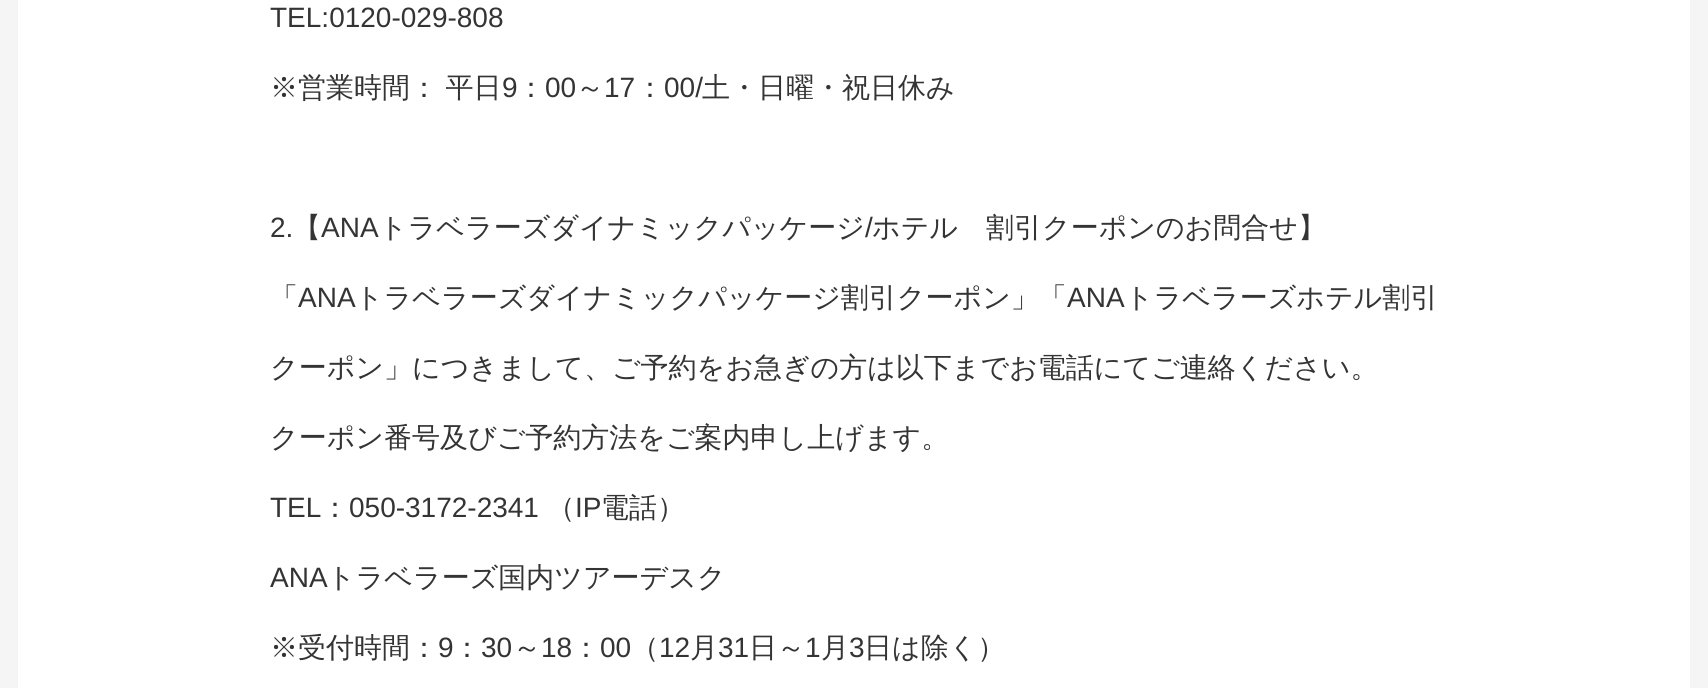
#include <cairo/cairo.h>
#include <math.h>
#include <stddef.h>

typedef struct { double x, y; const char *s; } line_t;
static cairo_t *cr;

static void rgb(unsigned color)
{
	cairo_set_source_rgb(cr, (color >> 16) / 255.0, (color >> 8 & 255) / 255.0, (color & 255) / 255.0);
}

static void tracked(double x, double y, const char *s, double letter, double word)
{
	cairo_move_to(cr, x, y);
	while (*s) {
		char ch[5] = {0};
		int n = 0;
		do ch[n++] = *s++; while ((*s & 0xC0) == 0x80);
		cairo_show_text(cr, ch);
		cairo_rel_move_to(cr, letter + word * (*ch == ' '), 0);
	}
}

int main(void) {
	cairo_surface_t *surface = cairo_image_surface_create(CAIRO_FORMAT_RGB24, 1708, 688);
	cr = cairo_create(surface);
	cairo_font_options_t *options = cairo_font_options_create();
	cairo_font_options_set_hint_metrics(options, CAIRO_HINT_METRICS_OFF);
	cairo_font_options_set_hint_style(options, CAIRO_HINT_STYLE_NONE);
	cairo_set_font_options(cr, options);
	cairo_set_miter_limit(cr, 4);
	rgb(0xffffff);
	cairo_paint(cr);
	cairo_rectangle(cr, 9, -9, 1690, 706);
	rgb(0xf5f5f5);
	cairo_set_line_width(cr, 18);
	cairo_stroke(cr);
	cairo_select_font_face(cr, "Liberation Sans", CAIRO_FONT_SLANT_NORMAL, CAIRO_FONT_WEIGHT_NORMAL);
	cairo_set_font_size(cr, 28);
	rgb(0x343434);
	cairo_move_to(cr, 270, 27);
	cairo_show_text(cr, "TEL:0120-029-808");
	cairo_select_font_face(cr, "WenQuanYi Zen Hei Medium", CAIRO_FONT_SLANT_NORMAL, CAIRO_FONT_WEIGHT_NORMAL);
	tracked(270, 97, "※営業時間： 平日", 0, -1);
	cairo_select_font_face(cr, "Liberation Sans", CAIRO_FONT_SLANT_NORMAL, CAIRO_FONT_WEIGHT_NORMAL);
	cairo_move_to(cr, 502, 97);
	cairo_show_text(cr, "9");
	cairo_select_font_face(cr, "WenQuanYi Zen Hei Medium", CAIRO_FONT_SLANT_NORMAL, CAIRO_FONT_WEIGHT_NORMAL);
	cairo_move_to(cr, 517, 97);
	cairo_show_text(cr, "：");
	cairo_select_font_face(cr, "Liberation Sans", CAIRO_FONT_SLANT_NORMAL, CAIRO_FONT_WEIGHT_NORMAL);
	cairo_move_to(cr, 545, 97);
	cairo_show_text(cr, "00");
	cairo_select_font_face(cr, "WenQuanYi Zen Hei Medium", CAIRO_FONT_SLANT_NORMAL, CAIRO_FONT_WEIGHT_NORMAL);
	cairo_move_to(cr, 576, 97);
	cairo_show_text(cr, "～");
	cairo_select_font_face(cr, "Liberation Sans", CAIRO_FONT_SLANT_NORMAL, CAIRO_FONT_WEIGHT_NORMAL);
	cairo_move_to(cr, 604, 97);
	cairo_show_text(cr, "17");
	cairo_select_font_face(cr, "WenQuanYi Zen Hei Medium", CAIRO_FONT_SLANT_NORMAL, CAIRO_FONT_WEIGHT_NORMAL);
	cairo_move_to(cr, 636, 97);
	cairo_show_text(cr, "：");
	cairo_select_font_face(cr, "Liberation Sans", CAIRO_FONT_SLANT_NORMAL, CAIRO_FONT_WEIGHT_NORMAL);
	cairo_move_to(cr, 664, 97);
	cairo_show_text(cr, "00/");
	cairo_select_font_face(cr, "WenQuanYi Zen Hei Medium", CAIRO_FONT_SLANT_NORMAL, CAIRO_FONT_WEIGHT_NORMAL);
	cairo_move_to(cr, 702, 97);
	cairo_show_text(cr, "土・日曜・祝日休み");
	cairo_select_font_face(cr, "Liberation Sans", CAIRO_FONT_SLANT_NORMAL, CAIRO_FONT_WEIGHT_NORMAL);
	cairo_move_to(cr, 270, 237);
	cairo_show_text(cr, "2.");
	cairo_select_font_face(cr, "WenQuanYi Zen Hei Medium", CAIRO_FONT_SLANT_NORMAL, CAIRO_FONT_WEIGHT_NORMAL);
	cairo_move_to(cr, 293, 237);
	cairo_show_text(cr, "【");
	cairo_select_font_face(cr, "Liberation Sans", CAIRO_FONT_SLANT_NORMAL, CAIRO_FONT_WEIGHT_NORMAL);
	cairo_move_to(cr, 321, 237);
	cairo_show_text(cr, "ANA");
	cairo_select_font_face(cr, "WenQuanYi Zen Hei Medium", CAIRO_FONT_SLANT_NORMAL, CAIRO_FONT_WEIGHT_NORMAL);
	cairo_move_to(cr, 379, 237);
	cairo_show_text(cr, "トラベラーズダイナミックパッケージ");
	cairo_select_font_face(cr, "Liberation Sans", CAIRO_FONT_SLANT_NORMAL, CAIRO_FONT_WEIGHT_NORMAL);
	cairo_move_to(cr, 865, 237);
	cairo_show_text(cr, "/");
	cairo_select_font_face(cr, "WenQuanYi Zen Hei Medium", CAIRO_FONT_SLANT_NORMAL, CAIRO_FONT_WEIGHT_NORMAL);
	cairo_move_to(cr, 872, 237);
	cairo_show_text(cr, "ホテル　割引クーポンのお問合せ】");
	cairo_move_to(cr, 270, 307);
	cairo_show_text(cr, "「");
	cairo_select_font_face(cr, "Liberation Sans", CAIRO_FONT_SLANT_NORMAL, CAIRO_FONT_WEIGHT_NORMAL);
	cairo_move_to(cr, 298, 307);
	cairo_show_text(cr, "ANA");
	cairo_select_font_face(cr, "WenQuanYi Zen Hei Medium", CAIRO_FONT_SLANT_NORMAL, CAIRO_FONT_WEIGHT_NORMAL);
	cairo_move_to(cr, 355, 307);
	cairo_show_text(cr, "トラベラーズダイナミックパッケージ割引クーポン」「");
	cairo_select_font_face(cr, "Liberation Sans", CAIRO_FONT_SLANT_NORMAL, CAIRO_FONT_WEIGHT_NORMAL);
	cairo_move_to(cr, 1067, 307);
	cairo_show_text(cr, "ANA");
	cairo_select_font_face(cr, "WenQuanYi Zen Hei Medium", CAIRO_FONT_SLANT_NORMAL, CAIRO_FONT_WEIGHT_NORMAL);
	{
		static const line_t items[] = {
			{1125, 307, "トラベラーズホテル割引"},
			{270, 377, "クーポン」につきまして、ご予約をお急ぎの方は以下までお電話にてご連絡ください。"},
			{270, 447, "クーポン番号及びご予約方法をご案内申し上げます。"},
		};
		for (size_t i = 0; i < sizeof items / sizeof *items; i++) {
			cairo_move_to(cr, items[i].x, items[i].y);
			cairo_show_text(cr, items[i].s);
		}
	}
	cairo_select_font_face(cr, "Liberation Sans", CAIRO_FONT_SLANT_NORMAL, CAIRO_FONT_WEIGHT_NORMAL);
	cairo_move_to(cr, 270, 517);
	cairo_show_text(cr, "TEL");
	cairo_select_font_face(cr, "WenQuanYi Zen Hei Medium", CAIRO_FONT_SLANT_NORMAL, CAIRO_FONT_WEIGHT_NORMAL);
	cairo_move_to(cr, 321, 517);
	cairo_show_text(cr, "：");
	cairo_select_font_face(cr, "Liberation Sans", CAIRO_FONT_SLANT_NORMAL, CAIRO_FONT_WEIGHT_NORMAL);
	cairo_move_to(cr, 349, 517);
	cairo_show_text(cr, "050-3172-2341");
	cairo_select_font_face(cr, "WenQuanYi Zen Hei Medium", CAIRO_FONT_SLANT_NORMAL, CAIRO_FONT_WEIGHT_NORMAL);
	cairo_move_to(cr, 547, 517);
	cairo_show_text(cr, "（");
	cairo_select_font_face(cr, "Liberation Sans", CAIRO_FONT_SLANT_NORMAL, CAIRO_FONT_WEIGHT_NORMAL);
	cairo_move_to(cr, 575, 517);
	cairo_show_text(cr, "IP");
	cairo_select_font_face(cr, "WenQuanYi Zen Hei Medium", CAIRO_FONT_SLANT_NORMAL, CAIRO_FONT_WEIGHT_NORMAL);
	cairo_move_to(cr, 601, 517);
	cairo_show_text(cr, "電話）");
	cairo_select_font_face(cr, "Liberation Sans", CAIRO_FONT_SLANT_NORMAL, CAIRO_FONT_WEIGHT_NORMAL);
	cairo_move_to(cr, 270, 587);
	cairo_show_text(cr, "ANA");
	cairo_select_font_face(cr, "WenQuanYi Zen Hei Medium", CAIRO_FONT_SLANT_NORMAL, CAIRO_FONT_WEIGHT_NORMAL);
	cairo_move_to(cr, 327, 587);
	cairo_show_text(cr, "トラベラーズ国内ツアーデスク");
	cairo_move_to(cr, 270, 657);
	cairo_show_text(cr, "※受付時間：");
	cairo_select_font_face(cr, "Liberation Sans", CAIRO_FONT_SLANT_NORMAL, CAIRO_FONT_WEIGHT_NORMAL);
	cairo_move_to(cr, 438, 657);
	cairo_show_text(cr, "9");
	cairo_select_font_face(cr, "WenQuanYi Zen Hei Medium", CAIRO_FONT_SLANT_NORMAL, CAIRO_FONT_WEIGHT_NORMAL);
	cairo_move_to(cr, 453, 657);
	cairo_show_text(cr, "：");
	cairo_select_font_face(cr, "Liberation Sans", CAIRO_FONT_SLANT_NORMAL, CAIRO_FONT_WEIGHT_NORMAL);
	cairo_move_to(cr, 481, 657);
	cairo_show_text(cr, "30");
	cairo_select_font_face(cr, "WenQuanYi Zen Hei Medium", CAIRO_FONT_SLANT_NORMAL, CAIRO_FONT_WEIGHT_NORMAL);
	cairo_move_to(cr, 513, 657);
	cairo_show_text(cr, "～");
	cairo_select_font_face(cr, "Liberation Sans", CAIRO_FONT_SLANT_NORMAL, CAIRO_FONT_WEIGHT_NORMAL);
	cairo_move_to(cr, 541, 657);
	cairo_show_text(cr, "18");
	cairo_select_font_face(cr, "WenQuanYi Zen Hei Medium", CAIRO_FONT_SLANT_NORMAL, CAIRO_FONT_WEIGHT_NORMAL);
	cairo_move_to(cr, 572, 657);
	cairo_show_text(cr, "：");
	cairo_select_font_face(cr, "Liberation Sans", CAIRO_FONT_SLANT_NORMAL, CAIRO_FONT_WEIGHT_NORMAL);
	cairo_move_to(cr, 600, 657);
	cairo_show_text(cr, "00");
	cairo_select_font_face(cr, "WenQuanYi Zen Hei Medium", CAIRO_FONT_SLANT_NORMAL, CAIRO_FONT_WEIGHT_NORMAL);
	cairo_move_to(cr, 631, 657);
	cairo_show_text(cr, "（");
	cairo_select_font_face(cr, "Liberation Sans", CAIRO_FONT_SLANT_NORMAL, CAIRO_FONT_WEIGHT_NORMAL);
	cairo_move_to(cr, 659, 657);
	cairo_show_text(cr, "12");
	cairo_select_font_face(cr, "WenQuanYi Zen Hei Medium", CAIRO_FONT_SLANT_NORMAL, CAIRO_FONT_WEIGHT_NORMAL);
	cairo_move_to(cr, 690, 657);
	cairo_show_text(cr, "月");
	cairo_select_font_face(cr, "Liberation Sans", CAIRO_FONT_SLANT_NORMAL, CAIRO_FONT_WEIGHT_NORMAL);
	cairo_move_to(cr, 718, 657);
	cairo_show_text(cr, "31");
	cairo_select_font_face(cr, "WenQuanYi Zen Hei Medium", CAIRO_FONT_SLANT_NORMAL, CAIRO_FONT_WEIGHT_NORMAL);
	cairo_move_to(cr, 749, 657);
	cairo_show_text(cr, "日～");
	cairo_select_font_face(cr, "Liberation Sans", CAIRO_FONT_SLANT_NORMAL, CAIRO_FONT_WEIGHT_NORMAL);
	cairo_move_to(cr, 805, 657);
	cairo_show_text(cr, "1");
	cairo_select_font_face(cr, "WenQuanYi Zen Hei Medium", CAIRO_FONT_SLANT_NORMAL, CAIRO_FONT_WEIGHT_NORMAL);
	cairo_move_to(cr, 821, 657);
	cairo_show_text(cr, "月");
	cairo_select_font_face(cr, "Liberation Sans", CAIRO_FONT_SLANT_NORMAL, CAIRO_FONT_WEIGHT_NORMAL);
	cairo_move_to(cr, 849, 657);
	cairo_show_text(cr, "3");
	cairo_select_font_face(cr, "WenQuanYi Zen Hei Medium", CAIRO_FONT_SLANT_NORMAL, CAIRO_FONT_WEIGHT_NORMAL);
	cairo_move_to(cr, 864, 657);
	cairo_show_text(cr, "日は除く）");
	cairo_surface_write_to_png(surface, "page.png");
	cairo_font_options_destroy(options);
	cairo_destroy(cr);
	cairo_surface_destroy(surface);
	return 0;
}
